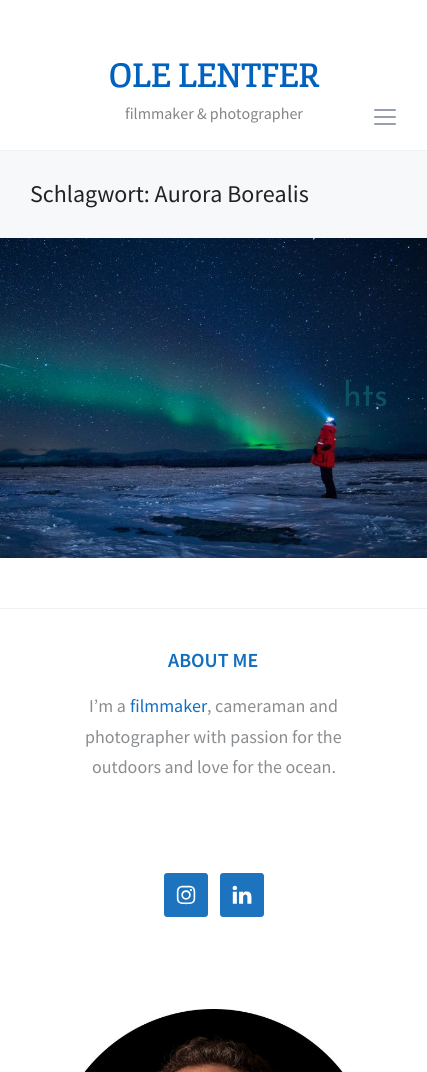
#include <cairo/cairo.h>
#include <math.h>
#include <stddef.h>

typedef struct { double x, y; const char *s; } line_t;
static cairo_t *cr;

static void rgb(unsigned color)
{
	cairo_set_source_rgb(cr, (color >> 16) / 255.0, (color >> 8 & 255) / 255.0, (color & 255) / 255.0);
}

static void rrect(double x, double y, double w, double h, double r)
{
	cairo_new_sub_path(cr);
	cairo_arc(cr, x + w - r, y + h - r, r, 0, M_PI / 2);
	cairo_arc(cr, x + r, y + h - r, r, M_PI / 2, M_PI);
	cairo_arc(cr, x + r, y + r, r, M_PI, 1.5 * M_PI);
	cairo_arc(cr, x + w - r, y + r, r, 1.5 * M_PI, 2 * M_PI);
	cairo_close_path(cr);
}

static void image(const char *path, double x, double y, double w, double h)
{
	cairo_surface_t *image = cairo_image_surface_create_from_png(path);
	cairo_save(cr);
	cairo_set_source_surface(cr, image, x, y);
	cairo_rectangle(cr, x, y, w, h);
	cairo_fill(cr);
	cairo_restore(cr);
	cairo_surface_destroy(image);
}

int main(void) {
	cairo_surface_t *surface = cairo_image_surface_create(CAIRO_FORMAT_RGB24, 427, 1072);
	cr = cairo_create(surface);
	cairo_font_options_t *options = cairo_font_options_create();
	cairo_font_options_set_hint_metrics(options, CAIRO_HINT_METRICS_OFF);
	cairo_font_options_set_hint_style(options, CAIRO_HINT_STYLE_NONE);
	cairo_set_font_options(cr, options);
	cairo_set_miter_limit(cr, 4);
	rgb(0xffffff);
	cairo_paint(cr);
	rgb(0x999ead);
	rrect(374, 109, 22, 2, 1);
	cairo_fill(cr);
	rrect(374, 116, 22, 2, 1);
	cairo_fill(cr);
	rrect(374, 123, 22, 2, 1);
	cairo_fill(cr);
	rgb(0xf7f8fa);
	cairo_rectangle(cr, 0, 151, 427, 87);
	cairo_fill(cr);
	rgb(0xf0f0f0);
	cairo_rectangle(cr, 0, 150, 427, 1);
	cairo_fill(cr);
	image("img/1.png", 0, 238, 427, 320);
	cairo_rectangle(cr, 0, 608, 427, 1);
	cairo_fill(cr);
	rgb(0x1e73be);
	rrect(164, 873, 44, 44, 3);
	cairo_fill(cr);
	image("img/2.png", 176, 885, 20, 20);
	rrect(220, 873, 44, 44, 3);
	cairo_fill(cr);
	image("img/3.png", 232, 885, 20, 19);
	image("img/4.png", 81, 1009, 265, 63);
	cairo_select_font_face(cr, "Fjord", CAIRO_FONT_SLANT_NORMAL, CAIRO_FONT_WEIGHT_BOLD);
	cairo_set_font_size(cr, 32);
	rgb(0x0062bf);
	cairo_move_to(cr, 108, 87);
	cairo_show_text(cr, "OLE LENTFER");
	cairo_select_font_face(cr, "Source Sans Pro", CAIRO_FONT_SLANT_NORMAL, CAIRO_FONT_WEIGHT_NORMAL);
	cairo_set_font_size(cr, 16);
	rgb(0x848484);
	cairo_move_to(cr, 125, 119);
	cairo_show_text(cr, "filmmaker & photographer");
	cairo_set_font_size(cr, 24);
	rgb(0x222222);
	cairo_move_to(cr, 30, 202);
	cairo_show_text(cr, "Schlagwort: Aurora Borealis");
	cairo_select_font_face(cr, "Josefin Sans", CAIRO_FONT_SLANT_NORMAL, CAIRO_FONT_WEIGHT_NORMAL);
	cairo_set_font_size(cr, 34);
	rgb(0x0d5061);
	cairo_move_to(cr, 343, 406);
	cairo_show_text(cr, "hts");
	cairo_select_font_face(cr, "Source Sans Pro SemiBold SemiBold", CAIRO_FONT_SLANT_NORMAL, CAIRO_FONT_WEIGHT_NORMAL);
	cairo_set_font_size(cr, 20);
	rgb(0x116ebf);
	cairo_move_to(cr, 168, 667);
	cairo_show_text(cr, "ABOUT ME");
	cairo_select_font_face(cr, "Source Sans Pro", CAIRO_FONT_SLANT_NORMAL, CAIRO_FONT_WEIGHT_NORMAL);
	cairo_set_font_size(cr, 18);
	rgb(0x8a8d90);
	cairo_move_to(cr, 89, 712);
	cairo_show_text(cr, "I’m a");
	rgb(0x116ebf);
	cairo_move_to(cr, 130, 712);
	cairo_show_text(cr, "filmmaker");
	rgb(0x8a8d90);
	{
		static const line_t items[] = {
			{207, 712, ", cameraman and"},
			{85, 743, "photographer with passion for the"},
			{92, 773, "outdoors and love for the ocean."},
		};
		for (size_t i = 0; i < sizeof items / sizeof *items; i++) {
			cairo_move_to(cr, items[i].x, items[i].y);
			cairo_show_text(cr, items[i].s);
		}
	}
	cairo_surface_write_to_png(surface, "page.png");
	cairo_font_options_destroy(options);
	cairo_destroy(cr);
	cairo_surface_destroy(surface);
	return 0;
}
